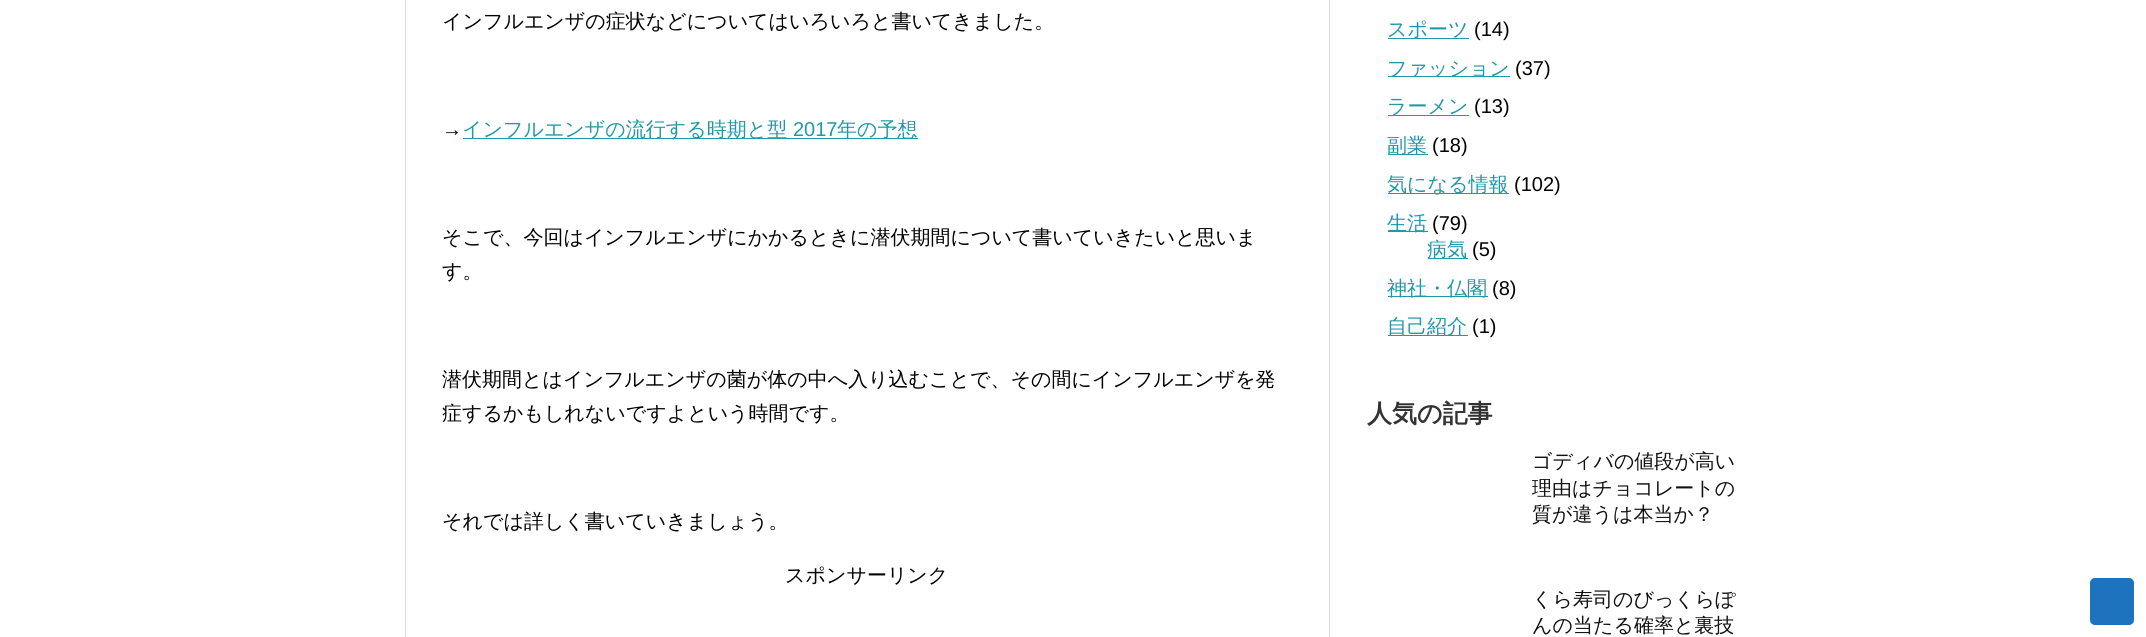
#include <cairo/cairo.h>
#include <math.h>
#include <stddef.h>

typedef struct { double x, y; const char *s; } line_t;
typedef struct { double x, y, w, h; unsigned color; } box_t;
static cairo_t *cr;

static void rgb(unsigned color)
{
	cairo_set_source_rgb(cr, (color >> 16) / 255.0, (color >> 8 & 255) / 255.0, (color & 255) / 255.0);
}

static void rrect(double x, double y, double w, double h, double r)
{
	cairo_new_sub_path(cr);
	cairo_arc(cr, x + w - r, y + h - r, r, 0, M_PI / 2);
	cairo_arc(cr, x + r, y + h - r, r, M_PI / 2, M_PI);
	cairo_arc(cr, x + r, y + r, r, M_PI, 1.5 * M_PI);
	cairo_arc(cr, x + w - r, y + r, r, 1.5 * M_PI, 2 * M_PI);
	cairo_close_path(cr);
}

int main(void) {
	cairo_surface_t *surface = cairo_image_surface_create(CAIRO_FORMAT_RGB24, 2146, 637);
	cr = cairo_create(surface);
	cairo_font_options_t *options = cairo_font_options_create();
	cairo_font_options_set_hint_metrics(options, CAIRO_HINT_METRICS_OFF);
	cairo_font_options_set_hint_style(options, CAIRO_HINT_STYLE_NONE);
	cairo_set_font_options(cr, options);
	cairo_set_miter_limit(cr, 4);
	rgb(0xffffff);
	cairo_paint(cr);
	cairo_rectangle(cr, 405.5, -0.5, 924, 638);
	rgb(0xdddddd);
	cairo_set_line_width(cr, 1);
	cairo_stroke(cr);
	{
		static const box_t items[] = {
			{463, 138, 455, 1, 0x2098a8},
			{1388, 38, 81, 1, 0x2098a8},
			{1388, 76, 122, 1, 0x2098a8},
			{1388, 115, 81, 1, 0x2098a8},
			{1388, 154, 40, 1, 0x2098a8},
			{1388, 193, 121, 1, 0x2098a8},
			{1388, 231, 40, 1, 0x2098a8},
			{1428, 258, 40, 1, 0x2098a8},
			{1388, 296, 100, 1, 0x2098a8},
			{1388, 335, 80, 1, 0x2098a8},
		};
		for (size_t i = 0; i < sizeof items / sizeof *items; i++) {
			rgb(items[i].color);
			cairo_rectangle(cr, items[i].x, items[i].y, items[i].w, items[i].h);
			cairo_fill(cr);
		}
	}
	rgb(0x1e73be);
	rrect(2090, 578, 44, 47, 5);
	cairo_fill(cr);
	cairo_select_font_face(cr, "WenQuanYi Zen Hei Medium", CAIRO_FONT_SLANT_NORMAL, CAIRO_FONT_WEIGHT_NORMAL);
	cairo_set_font_size(cr, 20);
	rgb(0x000000);
	cairo_move_to(cr, 442, 28);
	cairo_show_text(cr, "インフルエンザの症状などについてはいろいろと書いてきました。");
	cairo_select_font_face(cr, "Liberation Sans", CAIRO_FONT_SLANT_NORMAL, CAIRO_FONT_WEIGHT_NORMAL);
	cairo_move_to(cr, 442, 136);
	cairo_show_text(cr, "→");
	cairo_select_font_face(cr, "WenQuanYi Zen Hei Medium", CAIRO_FONT_SLANT_NORMAL, CAIRO_FONT_WEIGHT_NORMAL);
	rgb(0x2098a8);
	cairo_move_to(cr, 462, 136);
	cairo_show_text(cr, "インフルエンザの流行する時期と型");
	cairo_select_font_face(cr, "Liberation Sans", CAIRO_FONT_SLANT_NORMAL, CAIRO_FONT_WEIGHT_NORMAL);
	cairo_move_to(cr, 793, 136);
	cairo_show_text(cr, "2017");
	cairo_select_font_face(cr, "WenQuanYi Zen Hei Medium", CAIRO_FONT_SLANT_NORMAL, CAIRO_FONT_WEIGHT_NORMAL);
	cairo_move_to(cr, 837, 136);
	cairo_show_text(cr, "年の予想");
	rgb(0x000000);
	{
		static const line_t items[] = {
			{442, 244, "そこで、今回はインフルエンザにかかるときに潜伏期間について書いていきたいと思いま"},
			{442, 278, "す。"},
			{442, 386, "潜伏期間とはインフルエンザの菌が体の中へ入り込むことで、その間にインフルエンザを発"},
			{442, 420, "症するかもしれないですよという時間です。"},
			{442, 528, "それでは詳しく書いていきましょう。"},
			{785, 582, "スポンサーリンク"},
		};
		for (size_t i = 0; i < sizeof items / sizeof *items; i++) {
			cairo_move_to(cr, items[i].x, items[i].y);
			cairo_show_text(cr, items[i].s);
		}
	}
	rgb(0x2098a8);
	cairo_move_to(cr, 1387, 36);
	cairo_show_text(cr, "スポーツ");
	cairo_select_font_face(cr, "Liberation Sans", CAIRO_FONT_SLANT_NORMAL, CAIRO_FONT_WEIGHT_NORMAL);
	rgb(0x000000);
	cairo_move_to(cr, 1474, 36);
	cairo_show_text(cr, "(14)");
	cairo_select_font_face(cr, "WenQuanYi Zen Hei Medium", CAIRO_FONT_SLANT_NORMAL, CAIRO_FONT_WEIGHT_NORMAL);
	rgb(0x2098a8);
	cairo_move_to(cr, 1387, 75);
	cairo_show_text(cr, "ファッション");
	cairo_select_font_face(cr, "Liberation Sans", CAIRO_FONT_SLANT_NORMAL, CAIRO_FONT_WEIGHT_NORMAL);
	rgb(0x000000);
	cairo_move_to(cr, 1515, 75);
	cairo_show_text(cr, "(37)");
	cairo_select_font_face(cr, "WenQuanYi Zen Hei Medium", CAIRO_FONT_SLANT_NORMAL, CAIRO_FONT_WEIGHT_NORMAL);
	rgb(0x2098a8);
	cairo_move_to(cr, 1387, 113);
	cairo_show_text(cr, "ラーメン");
	cairo_select_font_face(cr, "Liberation Sans", CAIRO_FONT_SLANT_NORMAL, CAIRO_FONT_WEIGHT_NORMAL);
	rgb(0x000000);
	cairo_move_to(cr, 1474, 113);
	cairo_show_text(cr, "(13)");
	cairo_select_font_face(cr, "WenQuanYi Zen Hei Medium", CAIRO_FONT_SLANT_NORMAL, CAIRO_FONT_WEIGHT_NORMAL);
	rgb(0x2098a8);
	cairo_move_to(cr, 1387, 152);
	cairo_show_text(cr, "副業");
	cairo_select_font_face(cr, "Liberation Sans", CAIRO_FONT_SLANT_NORMAL, CAIRO_FONT_WEIGHT_NORMAL);
	rgb(0x000000);
	cairo_move_to(cr, 1432, 152);
	cairo_show_text(cr, "(18)");
	cairo_select_font_face(cr, "WenQuanYi Zen Hei Medium", CAIRO_FONT_SLANT_NORMAL, CAIRO_FONT_WEIGHT_NORMAL);
	rgb(0x2098a8);
	cairo_move_to(cr, 1387, 191);
	cairo_show_text(cr, "気になる情報");
	cairo_select_font_face(cr, "Liberation Sans", CAIRO_FONT_SLANT_NORMAL, CAIRO_FONT_WEIGHT_NORMAL);
	rgb(0x000000);
	cairo_move_to(cr, 1514, 191);
	cairo_show_text(cr, "(102)");
	cairo_select_font_face(cr, "WenQuanYi Zen Hei Medium", CAIRO_FONT_SLANT_NORMAL, CAIRO_FONT_WEIGHT_NORMAL);
	rgb(0x2098a8);
	cairo_move_to(cr, 1387, 230);
	cairo_show_text(cr, "生活");
	cairo_select_font_face(cr, "Liberation Sans", CAIRO_FONT_SLANT_NORMAL, CAIRO_FONT_WEIGHT_NORMAL);
	rgb(0x000000);
	cairo_move_to(cr, 1432, 230);
	cairo_show_text(cr, "(79)");
	cairo_select_font_face(cr, "WenQuanYi Zen Hei Medium", CAIRO_FONT_SLANT_NORMAL, CAIRO_FONT_WEIGHT_NORMAL);
	rgb(0x2098a8);
	cairo_move_to(cr, 1427, 256);
	cairo_show_text(cr, "病気");
	cairo_select_font_face(cr, "Liberation Sans", CAIRO_FONT_SLANT_NORMAL, CAIRO_FONT_WEIGHT_NORMAL);
	rgb(0x000000);
	cairo_move_to(cr, 1472, 256);
	cairo_show_text(cr, "(5)");
	cairo_select_font_face(cr, "WenQuanYi Zen Hei Medium", CAIRO_FONT_SLANT_NORMAL, CAIRO_FONT_WEIGHT_NORMAL);
	rgb(0x2098a8);
	cairo_move_to(cr, 1387, 295);
	cairo_show_text(cr, "神社・仏閣");
	cairo_select_font_face(cr, "Liberation Sans", CAIRO_FONT_SLANT_NORMAL, CAIRO_FONT_WEIGHT_NORMAL);
	rgb(0x000000);
	cairo_move_to(cr, 1492, 295);
	cairo_show_text(cr, "(8)");
	cairo_select_font_face(cr, "WenQuanYi Zen Hei Medium", CAIRO_FONT_SLANT_NORMAL, CAIRO_FONT_WEIGHT_NORMAL);
	rgb(0x2098a8);
	cairo_move_to(cr, 1387, 333);
	cairo_show_text(cr, "自己紹介");
	cairo_select_font_face(cr, "Liberation Sans", CAIRO_FONT_SLANT_NORMAL, CAIRO_FONT_WEIGHT_NORMAL);
	rgb(0x000000);
	cairo_move_to(cr, 1472, 333);
	cairo_show_text(cr, "(1)");
	cairo_select_font_face(cr, "WenQuanYi Zen Hei", CAIRO_FONT_SLANT_NORMAL, CAIRO_FONT_WEIGHT_BOLD);
	cairo_set_font_size(cr, 25);
	rgb(0x333333);
	cairo_move_to(cr, 1367, 422);
	cairo_show_text(cr, "人気の記事");
	cairo_select_font_face(cr, "WenQuanYi Zen Hei Medium", CAIRO_FONT_SLANT_NORMAL, CAIRO_FONT_WEIGHT_NORMAL);
	cairo_set_font_size(cr, 20);
	rgb(0x111111);
	{
		static const line_t items[] = {
			{1532, 468, "ゴディバの値段が高い"},
			{1532, 495, "理由はチョコレートの"},
			{1532, 521, "質が違うは本当か？"},
			{1532, 606, "くら寿司のびっくらぽ"},
			{1532, 632, "んの当たる確率と裏技"},
		};
		for (size_t i = 0; i < sizeof items / sizeof *items; i++) {
			cairo_move_to(cr, items[i].x, items[i].y);
			cairo_show_text(cr, items[i].s);
		}
	}
	cairo_surface_write_to_png(surface, "page.png");
	cairo_font_options_destroy(options);
	cairo_destroy(cr);
	cairo_surface_destroy(surface);
	return 0;
}
